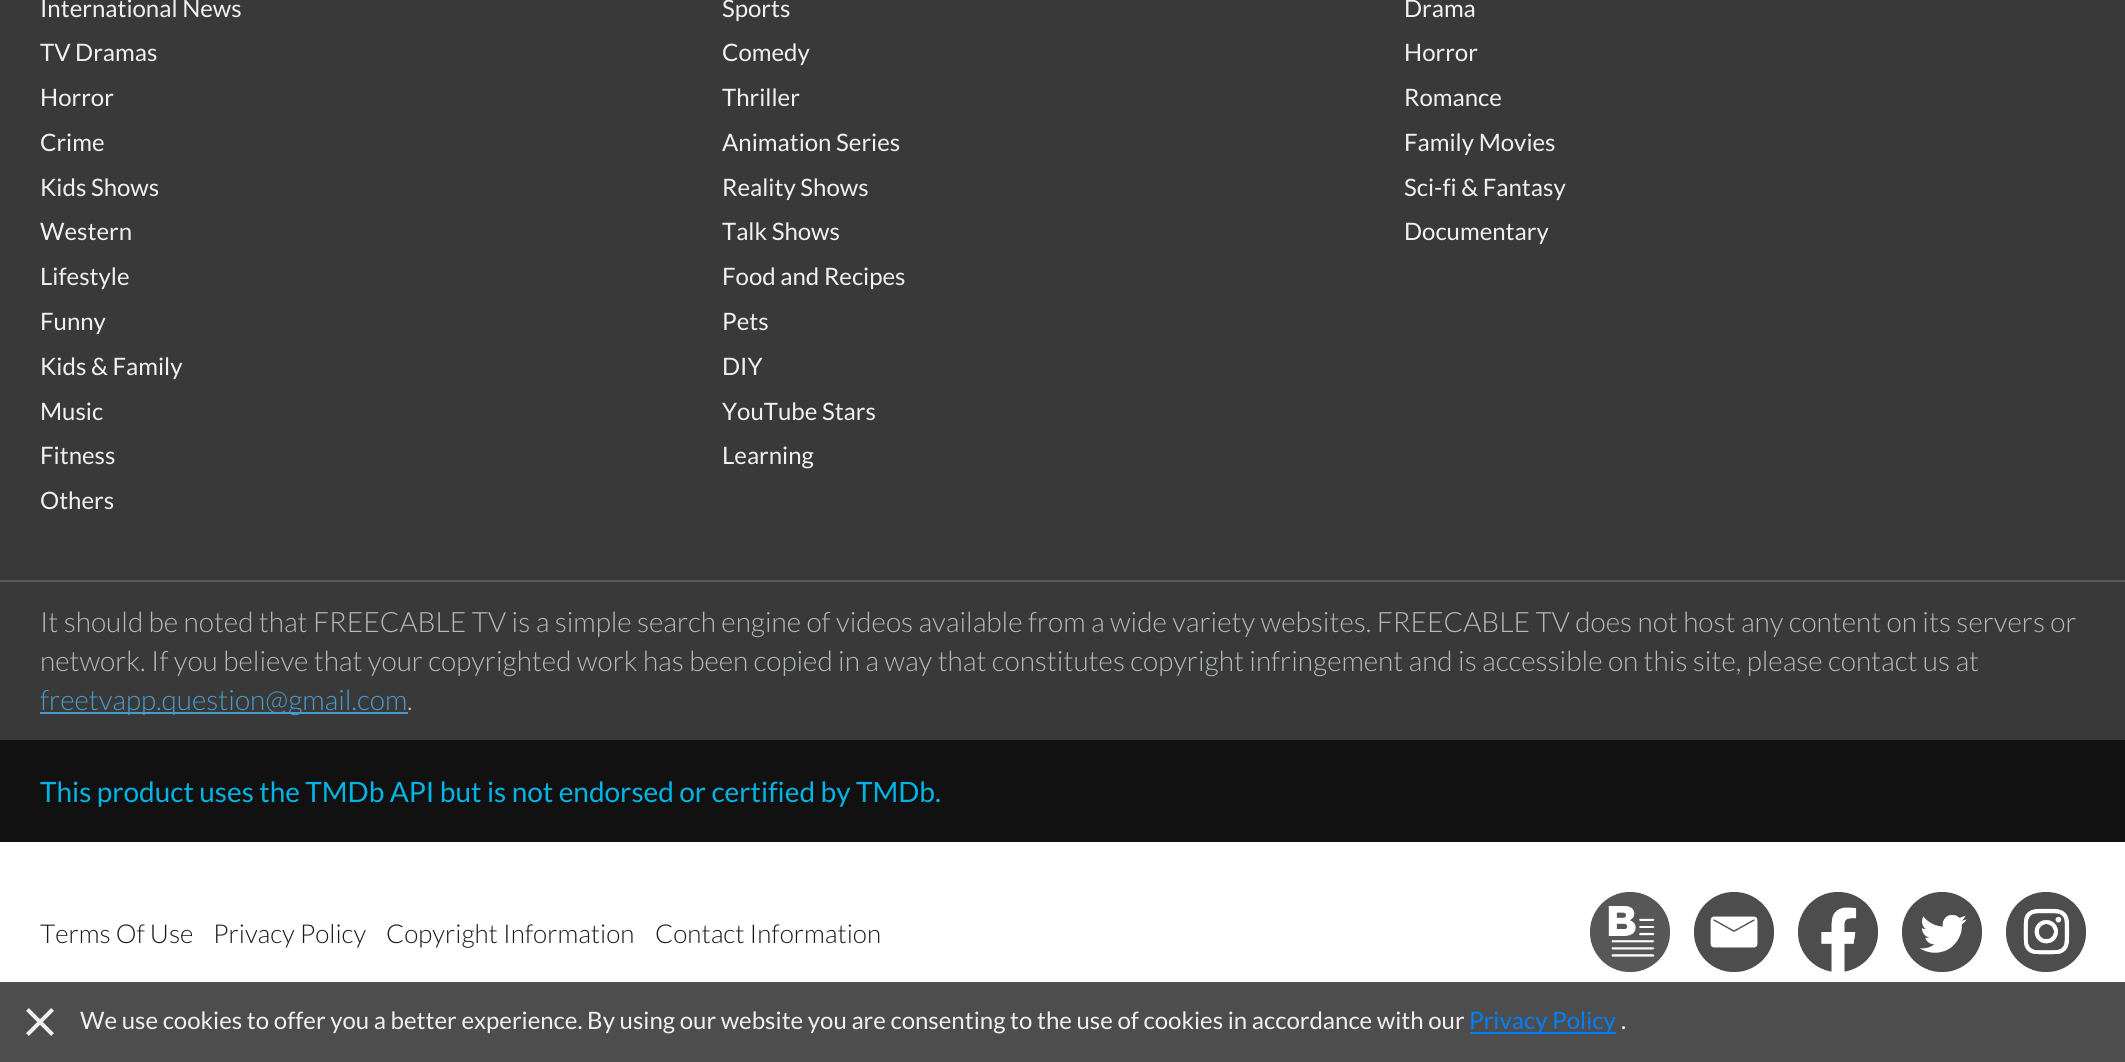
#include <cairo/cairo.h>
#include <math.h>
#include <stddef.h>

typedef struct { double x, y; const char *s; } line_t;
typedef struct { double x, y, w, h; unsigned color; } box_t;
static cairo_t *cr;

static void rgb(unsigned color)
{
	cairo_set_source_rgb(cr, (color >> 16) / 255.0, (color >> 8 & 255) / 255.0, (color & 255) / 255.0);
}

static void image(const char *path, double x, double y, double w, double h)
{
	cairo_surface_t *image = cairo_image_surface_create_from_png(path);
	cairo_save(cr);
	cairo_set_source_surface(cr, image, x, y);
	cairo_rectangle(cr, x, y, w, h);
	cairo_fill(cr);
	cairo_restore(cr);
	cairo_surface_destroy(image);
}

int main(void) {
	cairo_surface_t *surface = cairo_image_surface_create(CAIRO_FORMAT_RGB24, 2125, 1062);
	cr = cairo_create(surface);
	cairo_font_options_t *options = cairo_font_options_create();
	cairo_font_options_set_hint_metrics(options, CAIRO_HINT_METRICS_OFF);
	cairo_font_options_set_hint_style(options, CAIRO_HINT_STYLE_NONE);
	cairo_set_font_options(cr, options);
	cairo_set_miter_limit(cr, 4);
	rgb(0xffffff);
	cairo_paint(cr);
	{
		static const box_t items[] = {
			{0, 0, 2125, 580, 0x393939},
			{0, 582, 2125, 158, 0x393939},
			{0, 580, 2125, 2, 0x5a5a5a},
			{40, 712, 368, 2, 0x499bcb},
			{0, 740, 2125, 102, 0x111111},
		};
		for (size_t i = 0; i < sizeof items / sizeof *items; i++) {
			rgb(items[i].color);
			cairo_rectangle(cr, items[i].x, items[i].y, items[i].w, items[i].h);
			cairo_fill(cr);
		}
	}
	image("img/1.png", 1590, 892, 80, 80);
	image("img/2.png", 1694, 892, 80, 80);
	image("img/3.png", 1798, 892, 80, 80);
	image("img/4.png", 1902, 892, 80, 80);
	image("img/5.png", 2006, 892, 80, 80);
	rgb(0x4d4d4d);
	cairo_rectangle(cr, 0, 982, 2125, 80);
	cairo_fill(cr);
	image("img/6.png", 26, 1008, 28, 28);
	rgb(0x007ffb);
	cairo_rectangle(cr, 1470, 1032, 146, 2);
	cairo_fill(cr);
	cairo_select_font_face(cr, "Lato", CAIRO_FONT_SLANT_NORMAL, CAIRO_FONT_WEIGHT_NORMAL);
	cairo_set_font_size(cr, 24);
	rgb(0xf0f0f0);
	{
		static const line_t items[] = {
			{40, 17, "International News"},
			{722, 17, "Sports"},
			{40, 61, "TV Dramas"},
			{722, 61, "Comedy"},
			{40, 106, "Horror"},
			{722, 106, "Thriller"},
			{40, 151, "Crime"},
			{722, 151, "Animation Series"},
			{40, 196, "Kids Shows"},
			{722, 196, "Reality Shows"},
			{40, 240, "Western"},
			{722, 240, "Talk Shows"},
			{40, 285, "Lifestyle"},
			{722, 285, "Food and Recipes"},
			{40, 330, "Funny"},
			{722, 330, "Pets"},
			{40, 375, "Kids & Family"},
			{722, 375, "DIY"},
			{40, 420, "Music"},
			{722, 420, "YouTube Stars"},
			{40, 464, "Fitness"},
			{722, 464, "Learning"},
			{40, 509, "Others"},
			{1404, 17, "Drama"},
			{1404, 61, "Horror"},
			{1404, 106, "Romance"},
			{1404, 151, "Family Movies"},
			{1404, 196, "Sci-fi & Fantasy"},
			{1404, 240, "Documentary"},
		};
		for (size_t i = 0; i < sizeof items / sizeof *items; i++) {
			cairo_move_to(cr, items[i].x, items[i].y);
			cairo_show_text(cr, items[i].s);
		}
	}
	cairo_select_font_face(cr, "Lato Light", CAIRO_FONT_SLANT_NORMAL, CAIRO_FONT_WEIGHT_NORMAL);
	cairo_set_font_size(cr, 28);
	rgb(0xb7babc);
	cairo_move_to(cr, 40, 632);
	cairo_show_text(cr, "It should be noted that FREECABLE TV is a simple search engine of videos available from a wide variety websites. FREECABLE TV does not host any content on its servers or");
	cairo_move_to(cr, 40, 671);
	cairo_show_text(cr, "network. If you believe that your copyrighted work has been copied in a way that constitutes copyright infringement and is accessible on this site, please contact us at");
	rgb(0x499bcb);
	cairo_move_to(cr, 40, 710);
	cairo_show_text(cr, "freetvapp.question@gmail.com");
	rgb(0xb7babc);
	cairo_move_to(cr, 407, 710);
	cairo_show_text(cr, ".");
	cairo_select_font_face(cr, "Lato", CAIRO_FONT_SLANT_NORMAL, CAIRO_FONT_WEIGHT_NORMAL);
	rgb(0x01b4e4);
	cairo_move_to(cr, 40, 802);
	cairo_show_text(cr, "This product uses the TMDb API but is not endorsed or certified by TMDb.");
	cairo_select_font_face(cr, "Lato Light", CAIRO_FONT_SLANT_NORMAL, CAIRO_FONT_WEIGHT_NORMAL);
	cairo_set_font_size(cr, 26);
	rgb(0x191919);
	{
		static const line_t items[] = {
			{40, 943, "Terms Of Use"},
			{213, 943, "Privacy Policy"},
			{386, 943, "Copyright Information"},
			{655, 943, "Contact Information"},
		};
		for (size_t i = 0; i < sizeof items / sizeof *items; i++) {
			cairo_move_to(cr, items[i].x, items[i].y);
			cairo_show_text(cr, items[i].s);
		}
	}
	cairo_select_font_face(cr, "Lato", CAIRO_FONT_SLANT_NORMAL, CAIRO_FONT_WEIGHT_NORMAL);
	cairo_set_font_size(cr, 24);
	rgb(0xf0f0f0);
	cairo_move_to(cr, 80, 1029);
	cairo_show_text(cr, "We use cookies to offer you a better experience. By using our website you are consenting to the use of cookies in accordance with our");
	rgb(0x007ffb);
	cairo_move_to(cr, 1469, 1029);
	cairo_show_text(cr, "Privacy Policy");
	rgb(0xf0f0f0);
	cairo_move_to(cr, 1621, 1029);
	cairo_show_text(cr, ".");
	cairo_surface_write_to_png(surface, "page.png");
	cairo_font_options_destroy(options);
	cairo_destroy(cr);
	cairo_surface_destroy(surface);
	return 0;
}
